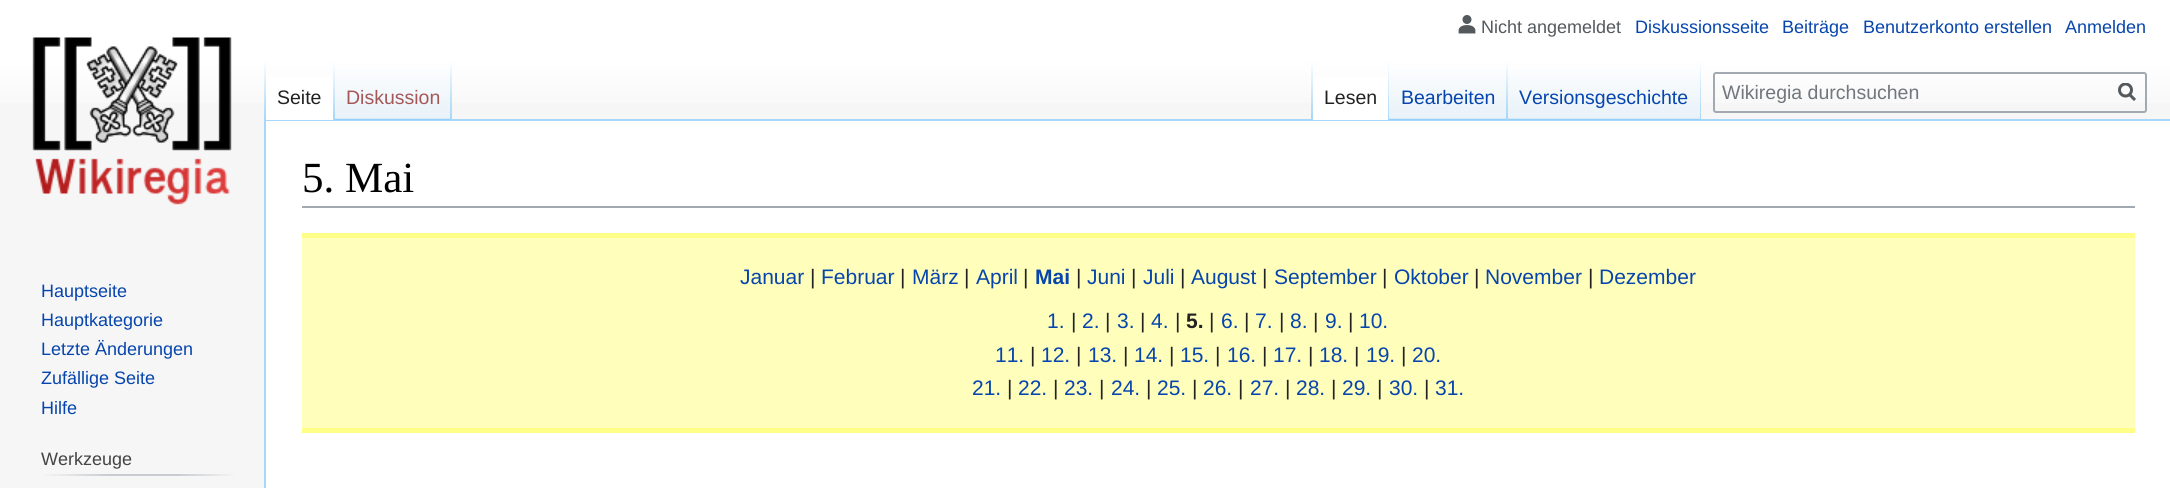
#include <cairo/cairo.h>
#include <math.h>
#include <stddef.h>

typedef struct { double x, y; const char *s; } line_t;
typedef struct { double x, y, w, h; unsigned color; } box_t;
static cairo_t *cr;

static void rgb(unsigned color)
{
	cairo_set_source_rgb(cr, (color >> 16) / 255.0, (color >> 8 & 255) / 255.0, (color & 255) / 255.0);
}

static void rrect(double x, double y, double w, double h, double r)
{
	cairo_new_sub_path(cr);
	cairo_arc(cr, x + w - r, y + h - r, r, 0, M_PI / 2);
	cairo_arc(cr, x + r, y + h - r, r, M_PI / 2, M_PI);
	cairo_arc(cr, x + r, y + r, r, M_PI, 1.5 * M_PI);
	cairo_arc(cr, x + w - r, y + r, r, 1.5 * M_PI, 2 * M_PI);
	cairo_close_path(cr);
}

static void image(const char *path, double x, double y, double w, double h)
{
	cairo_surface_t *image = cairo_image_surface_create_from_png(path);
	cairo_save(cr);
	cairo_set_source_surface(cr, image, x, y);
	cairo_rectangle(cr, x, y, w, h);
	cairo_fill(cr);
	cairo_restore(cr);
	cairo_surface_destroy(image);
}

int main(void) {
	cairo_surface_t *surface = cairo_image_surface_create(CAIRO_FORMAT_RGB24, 2170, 488);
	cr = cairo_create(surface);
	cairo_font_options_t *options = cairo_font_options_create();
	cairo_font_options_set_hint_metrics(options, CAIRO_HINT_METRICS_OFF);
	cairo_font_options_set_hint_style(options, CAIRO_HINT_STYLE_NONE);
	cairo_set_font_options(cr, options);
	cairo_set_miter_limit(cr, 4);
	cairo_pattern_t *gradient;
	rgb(0xf6f6f6);
	cairo_paint(cr);
	gradient = cairo_pattern_create_linear(1085, 0, 1085, 120);
	cairo_pattern_add_color_stop_rgba(gradient, 0.5, 1, 1, 1, 1);
	cairo_pattern_add_color_stop_rgba(gradient, 1, 0.965, 0.965, 0.965, 1);
	cairo_set_source(cr, gradient);
	cairo_pattern_destroy(gradient);
	cairo_rectangle(cr, 0, 0, 2170, 103);
	cairo_fill(cr);
	image("img/1.png", 1458, 15, 18, 19);
	rgb(0xa7d7f9);
	cairo_rectangle(cr, 264, 119, 1906, 2);
	cairo_fill(cr);
	cairo_rectangle(cr, 264, 119, 2, 369);
	cairo_fill(cr);
	gradient = cairo_pattern_create_linear(265, 60, 265, 120);
	cairo_pattern_add_color_stop_rgba(gradient, 0, 0.655, 0.843, 0.976, 0);
	cairo_pattern_add_color_stop_rgba(gradient, 1, 0.655, 0.843, 0.976, 1);
	cairo_set_source(cr, gradient);
	cairo_pattern_destroy(gradient);
	cairo_rectangle(cr, 264, 60, 2, 60);
	cairo_fill(cr);
	rgb(0xffffff);
	cairo_rectangle(cr, 266, 77, 67, 43);
	cairo_fill(cr);
	gradient = cairo_pattern_create_linear(334, 60, 334, 120);
	cairo_pattern_add_color_stop_rgba(gradient, 0, 1, 1, 1, 1);
	cairo_pattern_add_color_stop_rgba(gradient, 1, 0.655, 0.843, 0.976, 1);
	cairo_set_source(cr, gradient);
	cairo_pattern_destroy(gradient);
	cairo_rectangle(cr, 333, 60, 2, 60);
	cairo_fill(cr);
	gradient = cairo_pattern_create_linear(393, 120, 393, 60);
	cairo_pattern_add_color_stop_rgba(gradient, 0, 0.467, 0.757, 0.965, 1);
	cairo_pattern_add_color_stop_rgba(gradient, 0.03, 0.91, 0.949, 0.973, 1);
	cairo_pattern_add_color_stop_rgba(gradient, 1, 1, 1, 1, 1);
	cairo_set_source(cr, gradient);
	cairo_pattern_destroy(gradient);
	cairo_rectangle(cr, 335, 69, 117, 51);
	cairo_fill(cr);
	gradient = cairo_pattern_create_linear(451, 60, 451, 120);
	cairo_pattern_add_color_stop_rgba(gradient, 0, 0.655, 0.843, 0.976, 0);
	cairo_pattern_add_color_stop_rgba(gradient, 1, 0.655, 0.843, 0.976, 1);
	cairo_set_source(cr, gradient);
	cairo_pattern_destroy(gradient);
	cairo_rectangle(cr, 450, 60, 2, 60);
	cairo_fill(cr);
	gradient = cairo_pattern_create_linear(1312, 60, 1312, 120);
	cairo_pattern_add_color_stop_rgba(gradient, 0, 0.655, 0.843, 0.976, 0);
	cairo_pattern_add_color_stop_rgba(gradient, 1, 0.655, 0.843, 0.976, 1);
	cairo_set_source(cr, gradient);
	cairo_pattern_destroy(gradient);
	cairo_rectangle(cr, 1311, 60, 2, 60);
	cairo_fill(cr);
	rgb(0xffffff);
	cairo_rectangle(cr, 1313, 77, 75, 43);
	cairo_fill(cr);
	gradient = cairo_pattern_create_linear(1388, 60, 1388, 120);
	cairo_pattern_add_color_stop_rgba(gradient, 0, 1, 1, 1, 1);
	cairo_pattern_add_color_stop_rgba(gradient, 1, 0.655, 0.843, 0.976, 1);
	cairo_set_source(cr, gradient);
	cairo_pattern_destroy(gradient);
	cairo_rectangle(cr, 1388, 60, 1, 60);
	cairo_fill(cr);
	gradient = cairo_pattern_create_linear(1448, 120, 1448, 60);
	cairo_pattern_add_color_stop_rgba(gradient, 0, 0.467, 0.757, 0.965, 1);
	cairo_pattern_add_color_stop_rgba(gradient, 0.03, 0.91, 0.949, 0.973, 1);
	cairo_pattern_add_color_stop_rgba(gradient, 1, 1, 1, 1, 1);
	cairo_set_source(cr, gradient);
	cairo_pattern_destroy(gradient);
	cairo_rectangle(cr, 1389, 69, 119, 51);
	cairo_fill(cr);
	gradient = cairo_pattern_create_linear(1507, 60, 1507, 120);
	cairo_pattern_add_color_stop_rgba(gradient, 0, 0.655, 0.843, 0.976, 0);
	cairo_pattern_add_color_stop_rgba(gradient, 1, 0.655, 0.843, 0.976, 1);
	cairo_set_source(cr, gradient);
	cairo_pattern_destroy(gradient);
	cairo_rectangle(cr, 1506, 60, 2, 60);
	cairo_fill(cr);
	gradient = cairo_pattern_create_linear(1604, 120, 1604, 60);
	cairo_pattern_add_color_stop_rgba(gradient, 0, 0.467, 0.757, 0.965, 1);
	cairo_pattern_add_color_stop_rgba(gradient, 0.03, 0.91, 0.949, 0.973, 1);
	cairo_pattern_add_color_stop_rgba(gradient, 1, 1, 1, 1, 1);
	cairo_set_source(cr, gradient);
	cairo_pattern_destroy(gradient);
	cairo_rectangle(cr, 1508, 69, 193, 51);
	cairo_fill(cr);
	gradient = cairo_pattern_create_linear(1700, 60, 1700, 120);
	cairo_pattern_add_color_stop_rgba(gradient, 0, 0.655, 0.843, 0.976, 0);
	cairo_pattern_add_color_stop_rgba(gradient, 1, 0.655, 0.843, 0.976, 1);
	cairo_set_source(cr, gradient);
	cairo_pattern_destroy(gradient);
	cairo_rectangle(cr, 1700, 60, 1, 60);
	cairo_fill(cr);
	rrect(1714, 73, 432, 39, 2);
	rgb(0xa2a9b1);
	cairo_stroke(cr);
	cairo_new_path(cr);
	cairo_move_to(cr, 2135, 100);
	cairo_line_to(cr, 2129, 94);
	rgb(0x54595d);
	cairo_set_line_width(cr, 3);
	cairo_stroke(cr);
	cairo_save(cr);
	cairo_rectangle(cr, 2118, 83, 18, 19);
	cairo_clip(cr);
	cairo_arc(cr, 2125.5, 90, 6, 0, 2 * M_PI);
	cairo_stroke(cr);
	cairo_restore(cr);
	image("img/2.png", 32, 37, 200, 168);
	gradient = cairo_pattern_create_linear(41, 475, 237, 475);
	cairo_pattern_add_color_stop_rgba(gradient, 0, 0.965, 0.965, 0.965, 1);
	cairo_pattern_add_color_stop_rgba(gradient, 0.35, 0.784, 0.8, 0.82, 1);
	cairo_pattern_add_color_stop_rgba(gradient, 0.7, 0.784, 0.8, 0.82, 1);
	cairo_pattern_add_color_stop_rgba(gradient, 1, 0.965, 0.965, 0.965, 1);
	cairo_set_source(cr, gradient);
	cairo_pattern_destroy(gradient);
	cairo_rectangle(cr, 41, 474, 196, 2);
	cairo_fill(cr);
	{
		static const box_t items[] = {
			{266, 121, 1904, 367, 0xffffff},
			{302, 206, 1833, 2, 0xa2a9b1},
			{302, 238, 1833, 190, 0xffffbb},
			{302, 233, 1833, 5, 0xffff88},
			{302, 428, 1833, 5, 0xffff88},
		};
		for (size_t i = 0; i < sizeof items / sizeof *items; i++) {
			rgb(items[i].color);
			cairo_rectangle(cr, items[i].x, items[i].y, items[i].w, items[i].h);
			cairo_fill(cr);
		}
	}
	cairo_select_font_face(cr, "Liberation Sans", CAIRO_FONT_SLANT_NORMAL, CAIRO_FONT_WEIGHT_NORMAL);
	cairo_set_font_size(cr, 18);
	rgb(0x54595d);
	cairo_move_to(cr, 1481, 33);
	cairo_show_text(cr, "Nicht angemeldet");
	rgb(0x0645ad);
	{
		static const line_t items[] = {
			{1635, 33, "Diskussionsseite"},
			{1782, 33, "Beiträge"},
			{1863, 33, "Benutzerkonto erstellen"},
			{2065, 33, "Anmelden"},
		};
		for (size_t i = 0; i < sizeof items / sizeof *items; i++) {
			cairo_move_to(cr, items[i].x, items[i].y);
			cairo_show_text(cr, items[i].s);
		}
	}
	cairo_set_font_size(cr, 19.5);
	rgb(0x222222);
	cairo_move_to(cr, 277, 104);
	cairo_show_text(cr, "Seite");
	rgb(0xa55858);
	cairo_move_to(cr, 346, 104);
	cairo_show_text(cr, "Diskussion");
	rgb(0x222222);
	cairo_move_to(cr, 1324, 104);
	cairo_show_text(cr, "Lesen");
	rgb(0x0645ad);
	cairo_move_to(cr, 1401, 104);
	cairo_show_text(cr, "Bearbeiten");
	cairo_move_to(cr, 1519, 104);
	cairo_show_text(cr, "Versionsgeschichte");
	rgb(0x72777d);
	cairo_move_to(cr, 1722, 99);
	cairo_show_text(cr, "Wikiregia durchsuchen");
	cairo_set_font_size(cr, 18);
	rgb(0x0645ad);
	{
		static const line_t items[] = {
			{41, 297, "Hauptseite"},
			{41, 326, "Hauptkategorie"},
			{41, 355, "Letzte Änderungen"},
			{41, 384, "Zufällige Seite"},
			{41, 414, "Hilfe"},
		};
		for (size_t i = 0; i < sizeof items / sizeof *items; i++) {
			cairo_move_to(cr, items[i].x, items[i].y);
			cairo_show_text(cr, items[i].s);
		}
	}
	rgb(0x444444);
	cairo_move_to(cr, 41, 465);
	cairo_show_text(cr, "Werkzeuge");
	cairo_select_font_face(cr, "Liberation Serif", CAIRO_FONT_SLANT_NORMAL, CAIRO_FONT_WEIGHT_NORMAL);
	cairo_set_font_size(cr, 43);
	rgb(0x000000);
	cairo_move_to(cr, 302, 192);
	cairo_show_text(cr, "5. Mai");
	cairo_select_font_face(cr, "Liberation Sans", CAIRO_FONT_SLANT_NORMAL, CAIRO_FONT_WEIGHT_NORMAL);
	cairo_set_font_size(cr, 21);
	rgb(0x0645ad);
	cairo_move_to(cr, 740, 284);
	cairo_show_text(cr, "Januar");
	rgb(0x222222);
	cairo_move_to(cr, 810, 284);
	cairo_show_text(cr, "|");
	rgb(0x0645ad);
	cairo_move_to(cr, 821, 284);
	cairo_show_text(cr, "Februar");
	rgb(0x222222);
	cairo_move_to(cr, 900, 284);
	cairo_show_text(cr, "|");
	rgb(0x0645ad);
	cairo_move_to(cr, 912, 284);
	cairo_show_text(cr, "März");
	rgb(0x222222);
	cairo_move_to(cr, 964, 284);
	cairo_show_text(cr, "|");
	rgb(0x0645ad);
	cairo_move_to(cr, 976, 284);
	cairo_show_text(cr, "April");
	rgb(0x222222);
	cairo_move_to(cr, 1023, 284);
	cairo_show_text(cr, "|");
	cairo_select_font_face(cr, "Liberation Sans", CAIRO_FONT_SLANT_NORMAL, CAIRO_FONT_WEIGHT_BOLD);
	rgb(0x0645ad);
	cairo_move_to(cr, 1035, 284);
	cairo_show_text(cr, "Mai");
	cairo_select_font_face(cr, "Liberation Sans", CAIRO_FONT_SLANT_NORMAL, CAIRO_FONT_WEIGHT_NORMAL);
	rgb(0x222222);
	cairo_move_to(cr, 1076, 284);
	cairo_show_text(cr, "|");
	rgb(0x0645ad);
	cairo_move_to(cr, 1087, 284);
	cairo_show_text(cr, "Juni");
	rgb(0x222222);
	cairo_move_to(cr, 1131, 284);
	cairo_show_text(cr, "|");
	rgb(0x0645ad);
	cairo_move_to(cr, 1143, 284);
	cairo_show_text(cr, "Juli");
	rgb(0x222222);
	cairo_move_to(cr, 1180, 284);
	cairo_show_text(cr, "|");
	rgb(0x0645ad);
	cairo_move_to(cr, 1191, 284);
	cairo_show_text(cr, "August");
	rgb(0x222222);
	cairo_move_to(cr, 1262, 284);
	cairo_show_text(cr, "|");
	rgb(0x0645ad);
	cairo_move_to(cr, 1274, 284);
	cairo_show_text(cr, "September");
	rgb(0x222222);
	cairo_move_to(cr, 1382, 284);
	cairo_show_text(cr, "|");
	rgb(0x0645ad);
	cairo_move_to(cr, 1394, 284);
	cairo_show_text(cr, "Oktober");
	rgb(0x222222);
	cairo_move_to(cr, 1474, 284);
	cairo_show_text(cr, "|");
	rgb(0x0645ad);
	cairo_move_to(cr, 1485, 284);
	cairo_show_text(cr, "November");
	rgb(0x222222);
	cairo_move_to(cr, 1588, 284);
	cairo_show_text(cr, "|");
	rgb(0x0645ad);
	cairo_move_to(cr, 1599, 284);
	cairo_show_text(cr, "Dezember");
	cairo_move_to(cr, 1047, 328);
	cairo_show_text(cr, "1.");
	rgb(0x222222);
	cairo_move_to(cr, 1071, 328);
	cairo_show_text(cr, "|");
	rgb(0x0645ad);
	cairo_move_to(cr, 1082, 328);
	cairo_show_text(cr, "2.");
	rgb(0x222222);
	cairo_move_to(cr, 1105, 328);
	cairo_show_text(cr, "|");
	rgb(0x0645ad);
	cairo_move_to(cr, 1117, 328);
	cairo_show_text(cr, "3.");
	rgb(0x222222);
	cairo_move_to(cr, 1140, 328);
	cairo_show_text(cr, "|");
	rgb(0x0645ad);
	cairo_move_to(cr, 1151, 328);
	cairo_show_text(cr, "4.");
	rgb(0x222222);
	cairo_move_to(cr, 1175, 328);
	cairo_show_text(cr, "|");
	cairo_select_font_face(cr, "Liberation Sans", CAIRO_FONT_SLANT_NORMAL, CAIRO_FONT_WEIGHT_BOLD);
	cairo_move_to(cr, 1186, 328);
	cairo_show_text(cr, "5.");
	cairo_select_font_face(cr, "Liberation Sans", CAIRO_FONT_SLANT_NORMAL, CAIRO_FONT_WEIGHT_NORMAL);
	cairo_move_to(cr, 1209, 328);
	cairo_show_text(cr, "|");
	rgb(0x0645ad);
	cairo_move_to(cr, 1221, 328);
	cairo_show_text(cr, "6.");
	rgb(0x222222);
	cairo_move_to(cr, 1244, 328);
	cairo_show_text(cr, "|");
	rgb(0x0645ad);
	cairo_move_to(cr, 1255, 328);
	cairo_show_text(cr, "7.");
	rgb(0x222222);
	cairo_move_to(cr, 1279, 328);
	cairo_show_text(cr, "|");
	rgb(0x0645ad);
	cairo_move_to(cr, 1290, 328);
	cairo_show_text(cr, "8.");
	rgb(0x222222);
	cairo_move_to(cr, 1313, 328);
	cairo_show_text(cr, "|");
	rgb(0x0645ad);
	cairo_move_to(cr, 1325, 328);
	cairo_show_text(cr, "9.");
	rgb(0x222222);
	cairo_move_to(cr, 1348, 328);
	cairo_show_text(cr, "|");
	rgb(0x0645ad);
	cairo_move_to(cr, 1359, 328);
	cairo_show_text(cr, "10.");
	cairo_move_to(cr, 995, 362);
	cairo_show_text(cr, "11.");
	rgb(0x222222);
	cairo_move_to(cr, 1030, 362);
	cairo_show_text(cr, "|");
	rgb(0x0645ad);
	cairo_move_to(cr, 1041, 362);
	cairo_show_text(cr, "12.");
	rgb(0x222222);
	cairo_move_to(cr, 1076, 362);
	cairo_show_text(cr, "|");
	rgb(0x0645ad);
	cairo_move_to(cr, 1088, 362);
	cairo_show_text(cr, "13.");
	rgb(0x222222);
	cairo_move_to(cr, 1123, 362);
	cairo_show_text(cr, "|");
	rgb(0x0645ad);
	cairo_move_to(cr, 1134, 362);
	cairo_show_text(cr, "14.");
	rgb(0x222222);
	cairo_move_to(cr, 1169, 362);
	cairo_show_text(cr, "|");
	rgb(0x0645ad);
	cairo_move_to(cr, 1180, 362);
	cairo_show_text(cr, "15.");
	rgb(0x222222);
	cairo_move_to(cr, 1215, 362);
	cairo_show_text(cr, "|");
	rgb(0x0645ad);
	cairo_move_to(cr, 1227, 362);
	cairo_show_text(cr, "16.");
	rgb(0x222222);
	cairo_move_to(cr, 1262, 362);
	cairo_show_text(cr, "|");
	rgb(0x0645ad);
	cairo_move_to(cr, 1273, 362);
	cairo_show_text(cr, "17.");
	rgb(0x222222);
	cairo_move_to(cr, 1308, 362);
	cairo_show_text(cr, "|");
	rgb(0x0645ad);
	cairo_move_to(cr, 1319, 362);
	cairo_show_text(cr, "18.");
	rgb(0x222222);
	cairo_move_to(cr, 1354, 362);
	cairo_show_text(cr, "|");
	rgb(0x0645ad);
	cairo_move_to(cr, 1366, 362);
	cairo_show_text(cr, "19.");
	rgb(0x222222);
	cairo_move_to(cr, 1401, 362);
	cairo_show_text(cr, "|");
	rgb(0x0645ad);
	cairo_move_to(cr, 1412, 362);
	cairo_show_text(cr, "20.");
	cairo_move_to(cr, 972, 395);
	cairo_show_text(cr, "21.");
	rgb(0x222222);
	cairo_move_to(cr, 1007, 395);
	cairo_show_text(cr, "|");
	rgb(0x0645ad);
	cairo_move_to(cr, 1018, 395);
	cairo_show_text(cr, "22.");
	rgb(0x222222);
	cairo_move_to(cr, 1053, 395);
	cairo_show_text(cr, "|");
	rgb(0x0645ad);
	cairo_move_to(cr, 1064, 395);
	cairo_show_text(cr, "23.");
	rgb(0x222222);
	cairo_move_to(cr, 1099, 395);
	cairo_show_text(cr, "|");
	rgb(0x0645ad);
	cairo_move_to(cr, 1111, 395);
	cairo_show_text(cr, "24.");
	rgb(0x222222);
	cairo_move_to(cr, 1146, 395);
	cairo_show_text(cr, "|");
	rgb(0x0645ad);
	cairo_move_to(cr, 1157, 395);
	cairo_show_text(cr, "25.");
	rgb(0x222222);
	cairo_move_to(cr, 1192, 395);
	cairo_show_text(cr, "|");
	rgb(0x0645ad);
	cairo_move_to(cr, 1203, 395);
	cairo_show_text(cr, "26.");
	rgb(0x222222);
	cairo_move_to(cr, 1238, 395);
	cairo_show_text(cr, "|");
	rgb(0x0645ad);
	cairo_move_to(cr, 1250, 395);
	cairo_show_text(cr, "27.");
	rgb(0x222222);
	cairo_move_to(cr, 1285, 395);
	cairo_show_text(cr, "|");
	rgb(0x0645ad);
	cairo_move_to(cr, 1296, 395);
	cairo_show_text(cr, "28.");
	rgb(0x222222);
	cairo_move_to(cr, 1331, 395);
	cairo_show_text(cr, "|");
	rgb(0x0645ad);
	cairo_move_to(cr, 1342, 395);
	cairo_show_text(cr, "29.");
	rgb(0x222222);
	cairo_move_to(cr, 1377, 395);
	cairo_show_text(cr, "|");
	rgb(0x0645ad);
	cairo_move_to(cr, 1389, 395);
	cairo_show_text(cr, "30.");
	rgb(0x222222);
	cairo_move_to(cr, 1424, 395);
	cairo_show_text(cr, "|");
	rgb(0x0645ad);
	cairo_move_to(cr, 1435, 395);
	cairo_show_text(cr, "31.");
	cairo_surface_write_to_png(surface, "page.png");
	cairo_font_options_destroy(options);
	cairo_destroy(cr);
	cairo_surface_destroy(surface);
	return 0;
}
